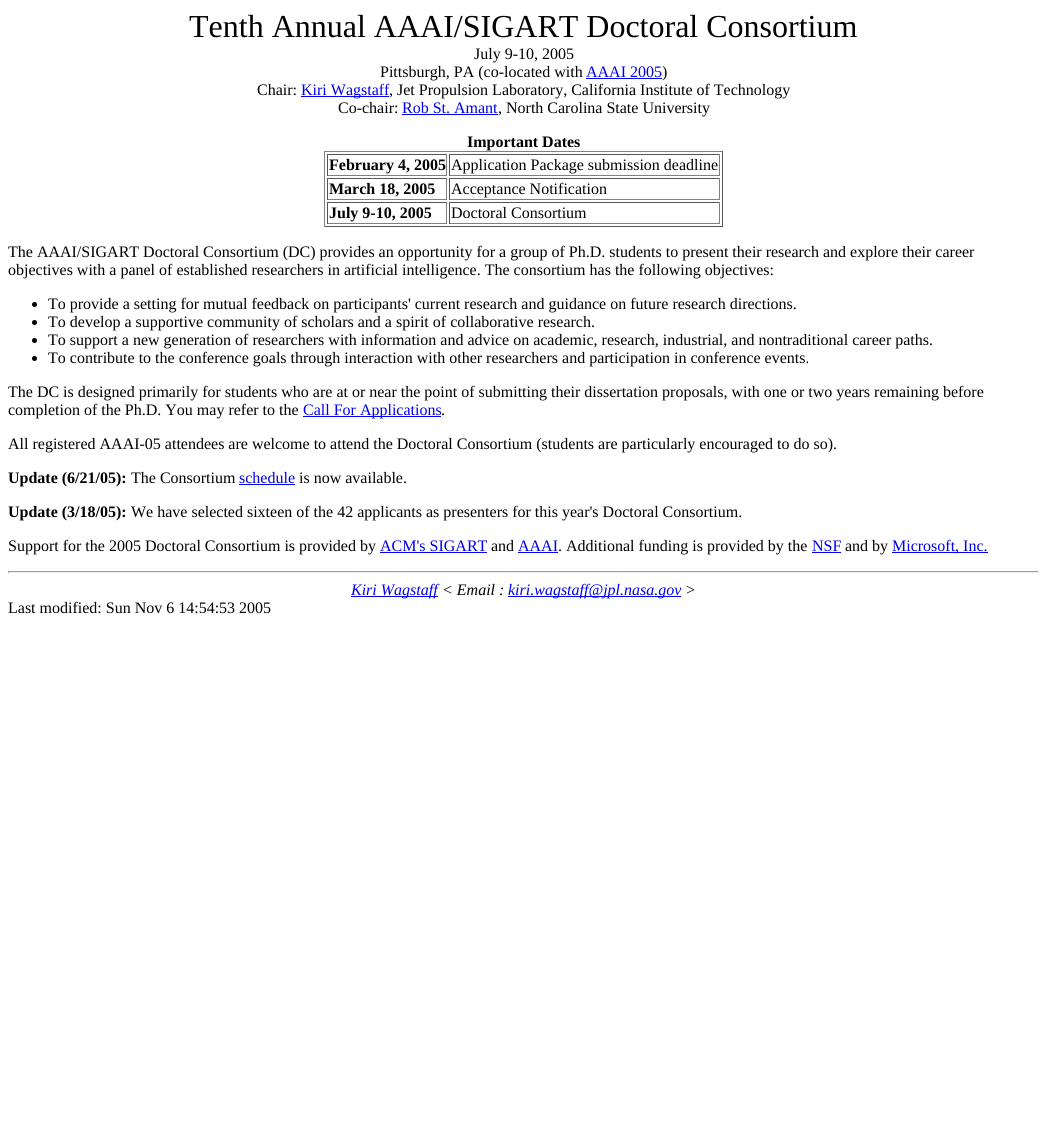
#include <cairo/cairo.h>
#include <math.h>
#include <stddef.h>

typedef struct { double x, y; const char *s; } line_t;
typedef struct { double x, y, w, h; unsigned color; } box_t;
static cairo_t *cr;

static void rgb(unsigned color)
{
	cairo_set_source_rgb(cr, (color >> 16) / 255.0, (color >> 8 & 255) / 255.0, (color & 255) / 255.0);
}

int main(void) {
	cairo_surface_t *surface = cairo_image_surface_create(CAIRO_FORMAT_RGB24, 1047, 1129);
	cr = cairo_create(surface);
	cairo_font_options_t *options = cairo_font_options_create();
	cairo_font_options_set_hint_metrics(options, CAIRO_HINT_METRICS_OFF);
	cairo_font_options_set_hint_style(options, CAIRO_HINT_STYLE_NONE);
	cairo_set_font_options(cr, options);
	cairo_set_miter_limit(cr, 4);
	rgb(0xffffff);
	cairo_paint(cr);
	{
		static const box_t items[] = {
			{586, 78, 76, 1, 0x0000ee},
			{301, 96, 88, 1, 0x0000ee},
			{402, 114, 96, 1, 0x0000ee},
			{324, 151, 399, 1, 0x808080},
			{722, 151, 1, 76, 0x555555},
			{324, 226, 399, 1, 0x555555},
			{324, 151, 1, 76, 0x808080},
			{327, 154, 120, 1, 0x555555},
			{446, 154, 1, 22, 0x808080},
			{327, 175, 120, 1, 0x808080},
			{327, 154, 1, 22, 0x555555},
			{449, 154, 271, 1, 0x555555},
			{719, 154, 1, 22, 0x808080},
			{449, 175, 271, 1, 0x808080},
			{449, 154, 1, 22, 0x555555},
			{327, 178, 120, 1, 0x555555},
			{446, 178, 1, 22, 0x808080},
			{327, 199, 120, 1, 0x808080},
			{327, 178, 1, 22, 0x555555},
			{449, 178, 271, 1, 0x555555},
			{719, 178, 1, 22, 0x808080},
			{449, 199, 271, 1, 0x808080},
			{449, 178, 1, 22, 0x555555},
			{327, 202, 120, 1, 0x555555},
			{446, 202, 1, 22, 0x808080},
			{327, 223, 120, 1, 0x808080},
			{327, 202, 1, 22, 0x555555},
			{449, 202, 271, 1, 0x555555},
			{719, 202, 1, 22, 0x808080},
			{449, 223, 271, 1, 0x808080},
			{449, 202, 1, 22, 0x555555},
		};
		for (size_t i = 0; i < sizeof items / sizeof *items; i++) {
			rgb(items[i].color);
			cairo_rectangle(cr, items[i].x, items[i].y, items[i].w, items[i].h);
			cairo_fill(cr);
		}
	}
	rgb(0x000000);
	cairo_arc(cr, 34.5, 304.5, 2.5, 0, 2 * M_PI);
	cairo_fill(cr);
	cairo_arc(cr, 34.5, 322.5, 2.5, 0, 2 * M_PI);
	cairo_fill(cr);
	cairo_arc(cr, 34.5, 340.5, 2.5, 0, 2 * M_PI);
	cairo_fill(cr);
	cairo_arc(cr, 34.5, 358.5, 2.5, 0, 2 * M_PI);
	cairo_fill(cr);
	{
		static const box_t items[] = {
			{303, 416, 138, 1, 0x0000ee},
			{239, 484, 56, 1, 0x0000ee},
			{380, 552, 107, 1, 0x0000ee},
			{518, 552, 40, 1, 0x0000ee},
			{812, 552, 29, 1, 0x0000ee},
			{892, 552, 96, 1, 0x0000ee},
			{8, 571, 1031, 1, 0x9f9f9f},
			{1038, 571, 1, 2, 0xeeeeee},
			{8, 572, 1031, 1, 0xeeeeee},
			{8, 571, 1, 2, 0x9f9f9f},
			{351, 596, 87, 1, 0x0000ee},
			{508, 596, 173, 1, 0x0000ee},
		};
		for (size_t i = 0; i < sizeof items / sizeof *items; i++) {
			rgb(items[i].color);
			cairo_rectangle(cr, items[i].x, items[i].y, items[i].w, items[i].h);
			cairo_fill(cr);
		}
	}
	cairo_select_font_face(cr, "Liberation Serif", CAIRO_FONT_SLANT_NORMAL, CAIRO_FONT_WEIGHT_NORMAL);
	cairo_set_font_size(cr, 32);
	rgb(0x000000);
	cairo_move_to(cr, 189, 37);
	cairo_show_text(cr, "Tenth Annual AAAI/SIGART Doctoral Consortium");
	cairo_set_font_size(cr, 16);
	cairo_move_to(cr, 474, 59);
	cairo_show_text(cr, "July 9-10, 2005");
	cairo_move_to(cr, 380, 77);
	cairo_show_text(cr, "Pittsburgh, PA (co-located with");
	rgb(0x0000ee);
	cairo_move_to(cr, 586, 77);
	cairo_show_text(cr, "AAAI 2005");
	rgb(0x000000);
	cairo_move_to(cr, 662, 77);
	cairo_show_text(cr, ")");
	cairo_move_to(cr, 257, 95);
	cairo_show_text(cr, "Chair:");
	rgb(0x0000ee);
	cairo_move_to(cr, 301, 95);
	cairo_show_text(cr, "Kiri Wagstaff");
	rgb(0x000000);
	cairo_move_to(cr, 389, 95);
	cairo_show_text(cr, ", Jet Propulsion Laboratory, California Institute of Technology");
	cairo_move_to(cr, 338, 113);
	cairo_show_text(cr, "Co-chair:");
	rgb(0x0000ee);
	cairo_move_to(cr, 402, 113);
	cairo_show_text(cr, "Rob St. Amant");
	rgb(0x000000);
	cairo_move_to(cr, 498, 113);
	cairo_show_text(cr, ", North Carolina State University");
	cairo_select_font_face(cr, "Liberation Serif", CAIRO_FONT_SLANT_NORMAL, CAIRO_FONT_WEIGHT_BOLD);
	cairo_move_to(cr, 467, 147);
	cairo_show_text(cr, "Important Dates");
	cairo_move_to(cr, 329, 170);
	cairo_show_text(cr, "February 4, 2005");
	cairo_select_font_face(cr, "Liberation Serif", CAIRO_FONT_SLANT_NORMAL, CAIRO_FONT_WEIGHT_NORMAL);
	cairo_move_to(cr, 451, 170);
	cairo_show_text(cr, "Application Package submission deadline");
	cairo_select_font_face(cr, "Liberation Serif", CAIRO_FONT_SLANT_NORMAL, CAIRO_FONT_WEIGHT_BOLD);
	cairo_move_to(cr, 329, 194);
	cairo_show_text(cr, "March 18, 2005");
	cairo_select_font_face(cr, "Liberation Serif", CAIRO_FONT_SLANT_NORMAL, CAIRO_FONT_WEIGHT_NORMAL);
	cairo_move_to(cr, 451, 194);
	cairo_show_text(cr, "Acceptance Notification");
	cairo_select_font_face(cr, "Liberation Serif", CAIRO_FONT_SLANT_NORMAL, CAIRO_FONT_WEIGHT_BOLD);
	cairo_move_to(cr, 329, 218);
	cairo_show_text(cr, "July 9-10, 2005");
	cairo_select_font_face(cr, "Liberation Serif", CAIRO_FONT_SLANT_NORMAL, CAIRO_FONT_WEIGHT_NORMAL);
	{
		static const line_t items[] = {
			{451, 218, "Doctoral Consortium"},
			{8, 257, "The AAAI/SIGART Doctoral Consortium (DC) provides an opportunity for a group of Ph.D. students to present their research and explore their career"},
			{8, 275, "objectives with a panel of established researchers in artificial intelligence. The consortium has the following objectives:"},
			{48, 309, "To provide a setting for mutual feedback on participants' current research and guidance on future research directions."},
			{48, 327, "To develop a supportive community of scholars and a spirit of collaborative research."},
			{48, 345, "To support a new generation of researchers with information and advice on academic, research, industrial, and nontraditional career paths."},
			{48, 363, "To contribute to the conference goals through interaction with other researchers and participation in conference events."},
			{8, 397, "The DC is designed primarily for students who are at or near the point of submitting their dissertation proposals, with one or two years remaining before"},
			{8, 415, "completion of the Ph.D. You may refer to the"},
		};
		for (size_t i = 0; i < sizeof items / sizeof *items; i++) {
			cairo_move_to(cr, items[i].x, items[i].y);
			cairo_show_text(cr, items[i].s);
		}
	}
	rgb(0x0000ee);
	cairo_move_to(cr, 303, 415);
	cairo_show_text(cr, "Call For Applications");
	rgb(0x000000);
	cairo_move_to(cr, 441, 415);
	cairo_show_text(cr, ".");
	cairo_move_to(cr, 8, 449);
	cairo_show_text(cr, "All registered AAAI-05 attendees are welcome to attend the Doctoral Consortium (students are particularly encouraged to do so).");
	cairo_select_font_face(cr, "Liberation Serif", CAIRO_FONT_SLANT_NORMAL, CAIRO_FONT_WEIGHT_BOLD);
	cairo_move_to(cr, 8, 483);
	cairo_show_text(cr, "Update (6/21/05):");
	cairo_select_font_face(cr, "Liberation Serif", CAIRO_FONT_SLANT_NORMAL, CAIRO_FONT_WEIGHT_NORMAL);
	cairo_move_to(cr, 131, 483);
	cairo_show_text(cr, "The Consortium");
	rgb(0x0000ee);
	cairo_move_to(cr, 239, 483);
	cairo_show_text(cr, "schedule");
	rgb(0x000000);
	cairo_move_to(cr, 299, 483);
	cairo_show_text(cr, "is now available.");
	cairo_select_font_face(cr, "Liberation Serif", CAIRO_FONT_SLANT_NORMAL, CAIRO_FONT_WEIGHT_BOLD);
	cairo_move_to(cr, 8, 517);
	cairo_show_text(cr, "Update (3/18/05):");
	cairo_select_font_face(cr, "Liberation Serif", CAIRO_FONT_SLANT_NORMAL, CAIRO_FONT_WEIGHT_NORMAL);
	cairo_move_to(cr, 131, 517);
	cairo_show_text(cr, "We have selected sixteen of the 42 applicants as presenters for this year's Doctoral Consortium.");
	cairo_move_to(cr, 8, 551);
	cairo_show_text(cr, "Support for the 2005 Doctoral Consortium is provided by");
	rgb(0x0000ee);
	cairo_move_to(cr, 380, 551);
	cairo_show_text(cr, "ACM's SIGART");
	rgb(0x000000);
	cairo_move_to(cr, 491, 551);
	cairo_show_text(cr, "and");
	rgb(0x0000ee);
	cairo_move_to(cr, 518, 551);
	cairo_show_text(cr, "AAAI");
	rgb(0x000000);
	cairo_move_to(cr, 558, 551);
	cairo_show_text(cr, ". Additional funding is provided by the");
	rgb(0x0000ee);
	cairo_move_to(cr, 812, 551);
	cairo_show_text(cr, "NSF");
	rgb(0x000000);
	cairo_move_to(cr, 845, 551);
	cairo_show_text(cr, "and by");
	rgb(0x0000ee);
	cairo_move_to(cr, 892, 551);
	cairo_show_text(cr, "Microsoft, Inc.");
	cairo_select_font_face(cr, "Liberation Serif", CAIRO_FONT_SLANT_ITALIC, CAIRO_FONT_WEIGHT_NORMAL);
	cairo_move_to(cr, 351, 595);
	cairo_show_text(cr, "Kiri Wagstaff");
	rgb(0x000000);
	cairo_move_to(cr, 442, 595);
	cairo_show_text(cr, "< Email :");
	rgb(0x0000ee);
	cairo_move_to(cr, 508, 595);
	cairo_show_text(cr, "kiri.wagstaff@jpl.nasa.gov");
	rgb(0x000000);
	cairo_move_to(cr, 685, 595);
	cairo_show_text(cr, ">");
	cairo_select_font_face(cr, "Liberation Serif", CAIRO_FONT_SLANT_NORMAL, CAIRO_FONT_WEIGHT_NORMAL);
	cairo_move_to(cr, 8, 613);
	cairo_show_text(cr, "Last modified: Sun Nov 6 14:54:53 2005");
	cairo_surface_write_to_png(surface, "page.png");
	cairo_font_options_destroy(options);
	cairo_destroy(cr);
	cairo_surface_destroy(surface);
	return 0;
}
